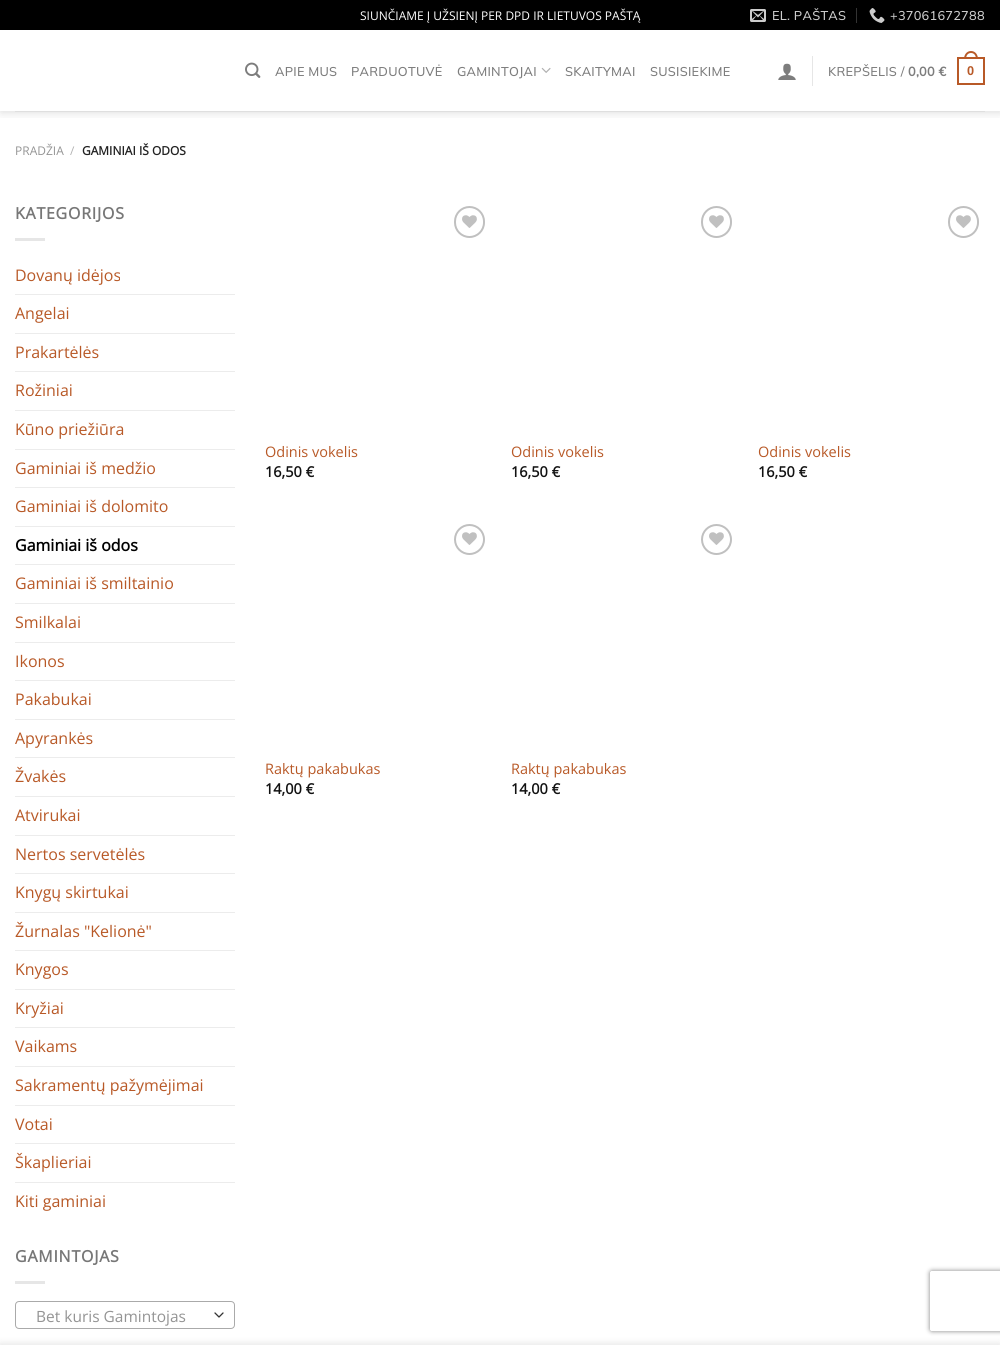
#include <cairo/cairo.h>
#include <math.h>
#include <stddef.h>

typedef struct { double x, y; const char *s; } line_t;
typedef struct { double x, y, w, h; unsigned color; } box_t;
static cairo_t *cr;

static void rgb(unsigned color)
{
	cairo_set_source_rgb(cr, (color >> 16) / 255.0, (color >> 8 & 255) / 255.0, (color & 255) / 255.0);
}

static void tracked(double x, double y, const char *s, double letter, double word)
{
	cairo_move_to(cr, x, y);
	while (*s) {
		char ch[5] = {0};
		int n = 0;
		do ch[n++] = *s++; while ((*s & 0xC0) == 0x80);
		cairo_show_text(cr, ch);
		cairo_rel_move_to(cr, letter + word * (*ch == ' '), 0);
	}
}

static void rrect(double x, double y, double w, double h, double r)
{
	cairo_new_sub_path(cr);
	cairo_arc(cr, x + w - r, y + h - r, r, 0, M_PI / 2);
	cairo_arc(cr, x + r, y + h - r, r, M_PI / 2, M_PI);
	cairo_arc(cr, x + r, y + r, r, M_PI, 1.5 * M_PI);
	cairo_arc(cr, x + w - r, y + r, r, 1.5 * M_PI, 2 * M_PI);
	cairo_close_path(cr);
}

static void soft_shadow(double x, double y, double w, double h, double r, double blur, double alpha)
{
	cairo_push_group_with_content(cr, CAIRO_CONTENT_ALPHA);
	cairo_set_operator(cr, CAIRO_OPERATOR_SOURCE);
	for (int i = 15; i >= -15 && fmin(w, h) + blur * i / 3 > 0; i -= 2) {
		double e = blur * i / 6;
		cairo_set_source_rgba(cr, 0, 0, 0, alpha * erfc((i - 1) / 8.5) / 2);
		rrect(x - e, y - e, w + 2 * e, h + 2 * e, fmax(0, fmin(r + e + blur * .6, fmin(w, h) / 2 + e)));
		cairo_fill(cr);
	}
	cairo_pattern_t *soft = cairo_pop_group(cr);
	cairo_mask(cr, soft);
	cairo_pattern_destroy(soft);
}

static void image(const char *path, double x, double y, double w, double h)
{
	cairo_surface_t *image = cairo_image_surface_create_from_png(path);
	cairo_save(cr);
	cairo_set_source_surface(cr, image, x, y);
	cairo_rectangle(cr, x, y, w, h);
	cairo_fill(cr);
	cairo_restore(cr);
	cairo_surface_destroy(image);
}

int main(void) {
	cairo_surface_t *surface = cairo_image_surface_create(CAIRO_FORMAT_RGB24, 1000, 1345);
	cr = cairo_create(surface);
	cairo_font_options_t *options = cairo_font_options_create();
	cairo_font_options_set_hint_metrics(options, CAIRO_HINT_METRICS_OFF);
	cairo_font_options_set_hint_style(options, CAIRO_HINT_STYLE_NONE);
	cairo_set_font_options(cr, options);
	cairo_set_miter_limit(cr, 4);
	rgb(0xffffff);
	cairo_paint(cr);
	cairo_save(cr);
	cairo_rectangle(cr, 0, 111, 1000, 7);
	cairo_clip(cr);
	rgb(0x000000);
	soft_shadow(1, 1, 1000, 111, 0, 5, 0.15);
	cairo_restore(cr);
	rgb(0x000000);
	cairo_rectangle(cr, 0, 0, 1000, 30);
	cairo_fill(cr);
	image("img/1.png", 750, 9, 16, 13);
	rgb(0x333333);
	cairo_rectangle(cr, 856, 8, 1, 15);
	cairo_fill(cr);
	image("img/2.png", 869, 8, 16, 15);
	image("img/3.png", 245, 62, 16, 16);
	image("img/4.png", 541, 67, 10, 6);
	image("img/5.png", 778, 63, 18, 17);
	rgb(0xe6e6e6);
	cairo_rectangle(cr, 812, 56, 1, 30);
	cairo_fill(cr);
	cairo_rectangle(cr, 958, 58, 26, 26);
	rgb(0xb85927);
	cairo_stroke(cr);
	cairo_set_fill_rule(cr, CAIRO_FILL_RULE_EVEN_ODD);
	cairo_new_path(cr);
	cairo_move_to(cr, 971, 51);
	cairo_curve_to(cr, 975.5, 51, 978, 55, 978, 59);
	cairo_line_to(cr, 964, 59);
	cairo_curve_to(cr, 964, 55, 966.5, 51, 971, 51);
	cairo_close_path(cr);
	cairo_move_to(cr, 971, 53);
	cairo_curve_to(cr, 974.5, 53, 976, 56, 976, 59);
	cairo_line_to(cr, 966, 59);
	cairo_curve_to(cr, 966, 56, 967.5, 53, 971, 53);
	cairo_close_path(cr);
	cairo_fill(cr);
	{
		static const box_t items[] = {
			{15, 111, 970, 1, 0xdfdfdf},
			{15, 238, 30, 3, 0xe6e6e6},
			{15, 294, 220, 1, 0xececec},
			{15, 333, 220, 1, 0xececec},
			{15, 371, 220, 1, 0xececec},
			{15, 410, 220, 1, 0xececec},
			{15, 449, 220, 1, 0xececec},
			{15, 487, 220, 1, 0xececec},
			{15, 526, 220, 1, 0xececec},
			{15, 564, 220, 1, 0xececec},
			{15, 603, 220, 1, 0xececec},
			{15, 642, 220, 1, 0xececec},
			{15, 680, 220, 1, 0xececec},
			{15, 719, 220, 1, 0xececec},
			{15, 757, 220, 1, 0xececec},
			{15, 796, 220, 1, 0xececec},
			{15, 835, 220, 1, 0xececec},
			{15, 873, 220, 1, 0xececec},
			{15, 912, 220, 1, 0xececec},
			{15, 950, 220, 1, 0xececec},
			{15, 989, 220, 1, 0xececec},
			{15, 1027, 220, 1, 0xececec},
			{15, 1066, 220, 1, 0xececec},
			{15, 1105, 220, 1, 0xececec},
			{15, 1143, 220, 1, 0xececec},
			{15, 1182, 220, 1, 0xececec},
			{15, 1281, 30, 3, 0xe6e6e6},
		};
		for (size_t i = 0; i < sizeof items / sizeof *items; i++) {
			rgb(items[i].color);
			cairo_rectangle(cr, items[i].x, items[i].y, items[i].w, items[i].h);
			cairo_fill(cr);
		}
	}
	cairo_new_path(cr);
	cairo_move_to(cr, 215, 1313);
	cairo_line_to(cr, 219, 1317);
	cairo_line_to(cr, 223, 1313);
	rgb(0x333333);
	cairo_set_line_width(cr, 1.3);
	cairo_set_line_cap(cr, CAIRO_LINE_CAP_ROUND);
	cairo_set_line_join(cr, CAIRO_LINE_JOIN_ROUND);
	cairo_stroke(cr);
	rrect(15.5, 1301.5, 219, 27, 3.5);
	rgb(0xaaaaaa);
	cairo_set_line_width(cr, 1);
	cairo_set_line_cap(cr, CAIRO_LINE_CAP_BUTT);
	cairo_set_line_join(cr, CAIRO_LINE_JOIN_MITER);
	cairo_stroke(cr);
	rrect(455, 207, 29, 30, 14.5);
	rgb(0xc0c0c0);
	cairo_set_line_width(cr, 2);
	cairo_stroke(cr);
	image("img/6.png", 462, 215, 15, 13);
	rrect(702, 207, 29, 30, 14.5);
	cairo_stroke(cr);
	image("img/6.png", 709, 215, 15, 13);
	rrect(949, 207, 29, 30, 14.5);
	cairo_stroke(cr);
	image("img/6.png", 956, 215, 15, 13);
	cairo_arc(cr, 469.5, 539.5, 14.5, 0, 2 * M_PI);
	cairo_stroke(cr);
	image("img/6.png", 462, 532, 15, 13);
	cairo_arc(cr, 716.5, 539.5, 14.5, 0, 2 * M_PI);
	cairo_stroke(cr);
	image("img/6.png", 709, 532, 15, 13);
	cairo_save(cr);
	cairo_new_path(cr);
	cairo_move_to(cr, 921, 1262);
	cairo_line_to(cr, 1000, 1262);
	cairo_line_to(cr, 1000, 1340);
	cairo_line_to(cr, 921, 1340);
	cairo_close_path(cr);
	cairo_move_to(cr, 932, 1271);
	cairo_line_to(cr, 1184, 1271);
	cairo_curve_to(cr, 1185, 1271, 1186, 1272, 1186, 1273);
	cairo_line_to(cr, 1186, 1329);
	cairo_curve_to(cr, 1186, 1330, 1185, 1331, 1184, 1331);
	cairo_line_to(cr, 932, 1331);
	cairo_curve_to(cr, 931, 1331, 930, 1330, 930, 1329);
	cairo_line_to(cr, 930, 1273);
	cairo_curve_to(cr, 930, 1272, 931, 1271, 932, 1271);
	cairo_close_path(cr);
	cairo_clip(cr);
	rgb(0x808080);
	soft_shadow(930, 1271, 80, 60, 2, 2.5, 1);
	cairo_restore(cr);
	rgb(0x000000);
	soft_shadow(0, 1345, 1000, 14, 0, 4.5, 0.14);
	cairo_select_font_face(cr, "Open Sans", CAIRO_FONT_SLANT_NORMAL, CAIRO_FONT_WEIGHT_NORMAL);
	cairo_set_font_size(cr, 12);
	rgb(0xffffff);
	cairo_move_to(cr, 360, 20);
	cairo_show_text(cr, "SIUNČIAME Į UŽSIENĮ PER DPD IR LIETUVOS PAŠTĄ");
	cairo_select_font_face(cr, "Mulish ExtraLight", CAIRO_FONT_SLANT_NORMAL, CAIRO_FONT_WEIGHT_NORMAL);
	cairo_set_font_size(cr, 12.75);
	rgb(0xcccccc);
	tracked(772, 20, "EL. PAŠTAS", 0.25, 0);
	tracked(890, 20, "+37061672788", 0.25, 0);
	rgb(0x7d7d7d);
	{
		static const line_t items[] = {
			{275, 76, "APIE MUS"},
			{351, 76, "PARDUOTUVĖ"},
			{457, 76, "GAMINTOJAI"},
			{565, 76, "SKAITYMAI"},
			{650, 76, "SUSISIEKIME"},
			{828, 76, "KREPŠELIS /"},
		};
		for (size_t i = 0; i < sizeof items / sizeof *items; i++) {
			tracked(items[i].x, items[i].y, items[i].s, 0.25, 0);
		}
	}
	cairo_select_font_face(cr, "Mulish", CAIRO_FONT_SLANT_NORMAL, CAIRO_FONT_WEIGHT_BOLD);
	tracked(908, 76, "0,00 €", 0.25, 0);
	cairo_select_font_face(cr, "Liberation Sans", CAIRO_FONT_SLANT_NORMAL, CAIRO_FONT_WEIGHT_BOLD);
	rgb(0xb85927);
	tracked(967, 75, "0", 0.25, 0);
	cairo_select_font_face(cr, "Open Sans", CAIRO_FONT_SLANT_NORMAL, CAIRO_FONT_WEIGHT_NORMAL);
	cairo_set_font_size(cr, 12);
	rgb(0x949494);
	cairo_move_to(cr, 15, 155);
	cairo_show_text(cr, "PRADŽIA");
	rgb(0xb2b2b2);
	cairo_move_to(cr, 70, 155);
	cairo_show_text(cr, "/");
	cairo_select_font_face(cr, "Open Sans", CAIRO_FONT_SLANT_NORMAL, CAIRO_FONT_WEIGHT_BOLD);
	rgb(0x222222);
	cairo_move_to(cr, 82, 155);
	cairo_show_text(cr, "GAMINIAI IŠ ODOS");
	cairo_set_font_size(cr, 16);
	rgb(0x777777);
	tracked(15, 219, "KATEGORIJOS", 0.75, 0);
	cairo_select_font_face(cr, "Open Sans", CAIRO_FONT_SLANT_NORMAL, CAIRO_FONT_WEIGHT_NORMAL);
	rgb(0xb85927);
	{
		static const line_t items[] = {
			{15, 281, "Dovanų idėjos"},
			{15, 319, "Angelai"},
			{15, 358, "Prakartėlės"},
			{15, 396, "Rožiniai"},
			{15, 435, "Kūno priežiūra"},
			{15, 474, "Gaminiai iš medžio"},
			{15, 512, "Gaminiai iš dolomito"},
		};
		for (size_t i = 0; i < sizeof items / sizeof *items; i++) {
			cairo_move_to(cr, items[i].x, items[i].y);
			cairo_show_text(cr, items[i].s);
		}
	}
	cairo_select_font_face(cr, "Open Sans", CAIRO_FONT_SLANT_NORMAL, CAIRO_FONT_WEIGHT_BOLD);
	rgb(0x000000);
	cairo_move_to(cr, 15, 551);
	cairo_show_text(cr, "Gaminiai iš odos");
	cairo_select_font_face(cr, "Open Sans", CAIRO_FONT_SLANT_NORMAL, CAIRO_FONT_WEIGHT_NORMAL);
	rgb(0xb85927);
	{
		static const line_t items[] = {
			{15, 589, "Gaminiai iš smiltainio"},
			{15, 628, "Smilkalai"},
			{15, 667, "Ikonos"},
			{15, 705, "Pakabukai"},
			{15, 744, "Apyrankės"},
			{15, 782, "Žvakės"},
			{15, 821, "Atvirukai"},
			{15, 860, "Nertos servetėlės"},
			{15, 898, "Knygų skirtukai"},
			{15, 937, "Žurnalas \"Kelionė\""},
			{15, 975, "Knygos"},
			{15, 1014, "Kryžiai"},
			{15, 1052, "Vaikams"},
			{15, 1091, "Sakramentų pažymėjimai"},
			{15, 1130, "Votai"},
			{15, 1168, "Škaplieriai"},
			{15, 1207, "Kiti gaminiai"},
		};
		for (size_t i = 0; i < sizeof items / sizeof *items; i++) {
			cairo_move_to(cr, items[i].x, items[i].y);
			cairo_show_text(cr, items[i].s);
		}
	}
	cairo_select_font_face(cr, "Open Sans", CAIRO_FONT_SLANT_NORMAL, CAIRO_FONT_WEIGHT_BOLD);
	rgb(0x777777);
	tracked(15, 1262, "GAMINTOJAS", 0.75, 0);
	cairo_select_font_face(cr, "Open Sans", CAIRO_FONT_SLANT_NORMAL, CAIRO_FONT_WEIGHT_NORMAL);
	cairo_set_font_size(cr, 15.5);
	rgb(0x949494);
	cairo_move_to(cr, 36, 1322);
	cairo_show_text(cr, "Bet kuris Gamintojas");
	cairo_set_font_size(cr, 14.5);
	rgb(0xb85927);
	cairo_move_to(cr, 265, 457);
	cairo_show_text(cr, "Odinis vokelis");
	cairo_select_font_face(cr, "Open Sans", CAIRO_FONT_SLANT_NORMAL, CAIRO_FONT_WEIGHT_BOLD);
	rgb(0x111111);
	cairo_move_to(cr, 265, 477);
	cairo_show_text(cr, "16,50 €");
	cairo_select_font_face(cr, "Open Sans", CAIRO_FONT_SLANT_NORMAL, CAIRO_FONT_WEIGHT_NORMAL);
	rgb(0xb85927);
	cairo_move_to(cr, 511, 457);
	cairo_show_text(cr, "Odinis vokelis");
	cairo_select_font_face(cr, "Open Sans", CAIRO_FONT_SLANT_NORMAL, CAIRO_FONT_WEIGHT_BOLD);
	rgb(0x111111);
	cairo_move_to(cr, 511, 477);
	cairo_show_text(cr, "16,50 €");
	cairo_select_font_face(cr, "Open Sans", CAIRO_FONT_SLANT_NORMAL, CAIRO_FONT_WEIGHT_NORMAL);
	rgb(0xb85927);
	cairo_move_to(cr, 758, 457);
	cairo_show_text(cr, "Odinis vokelis");
	cairo_select_font_face(cr, "Open Sans", CAIRO_FONT_SLANT_NORMAL, CAIRO_FONT_WEIGHT_BOLD);
	rgb(0x111111);
	cairo_move_to(cr, 758, 477);
	cairo_show_text(cr, "16,50 €");
	cairo_select_font_face(cr, "Open Sans", CAIRO_FONT_SLANT_NORMAL, CAIRO_FONT_WEIGHT_NORMAL);
	rgb(0xb85927);
	cairo_move_to(cr, 265, 774);
	cairo_show_text(cr, "Raktų pakabukas");
	cairo_select_font_face(cr, "Open Sans", CAIRO_FONT_SLANT_NORMAL, CAIRO_FONT_WEIGHT_BOLD);
	rgb(0x111111);
	cairo_move_to(cr, 265, 794);
	cairo_show_text(cr, "14,00 €");
	cairo_select_font_face(cr, "Open Sans", CAIRO_FONT_SLANT_NORMAL, CAIRO_FONT_WEIGHT_NORMAL);
	rgb(0xb85927);
	cairo_move_to(cr, 511, 774);
	cairo_show_text(cr, "Raktų pakabukas");
	cairo_select_font_face(cr, "Open Sans", CAIRO_FONT_SLANT_NORMAL, CAIRO_FONT_WEIGHT_BOLD);
	rgb(0x111111);
	cairo_move_to(cr, 511, 794);
	cairo_show_text(cr, "14,00 €");
	cairo_surface_write_to_png(surface, "page.png");
	cairo_font_options_destroy(options);
	cairo_destroy(cr);
	cairo_surface_destroy(surface);
	return 0;
}
